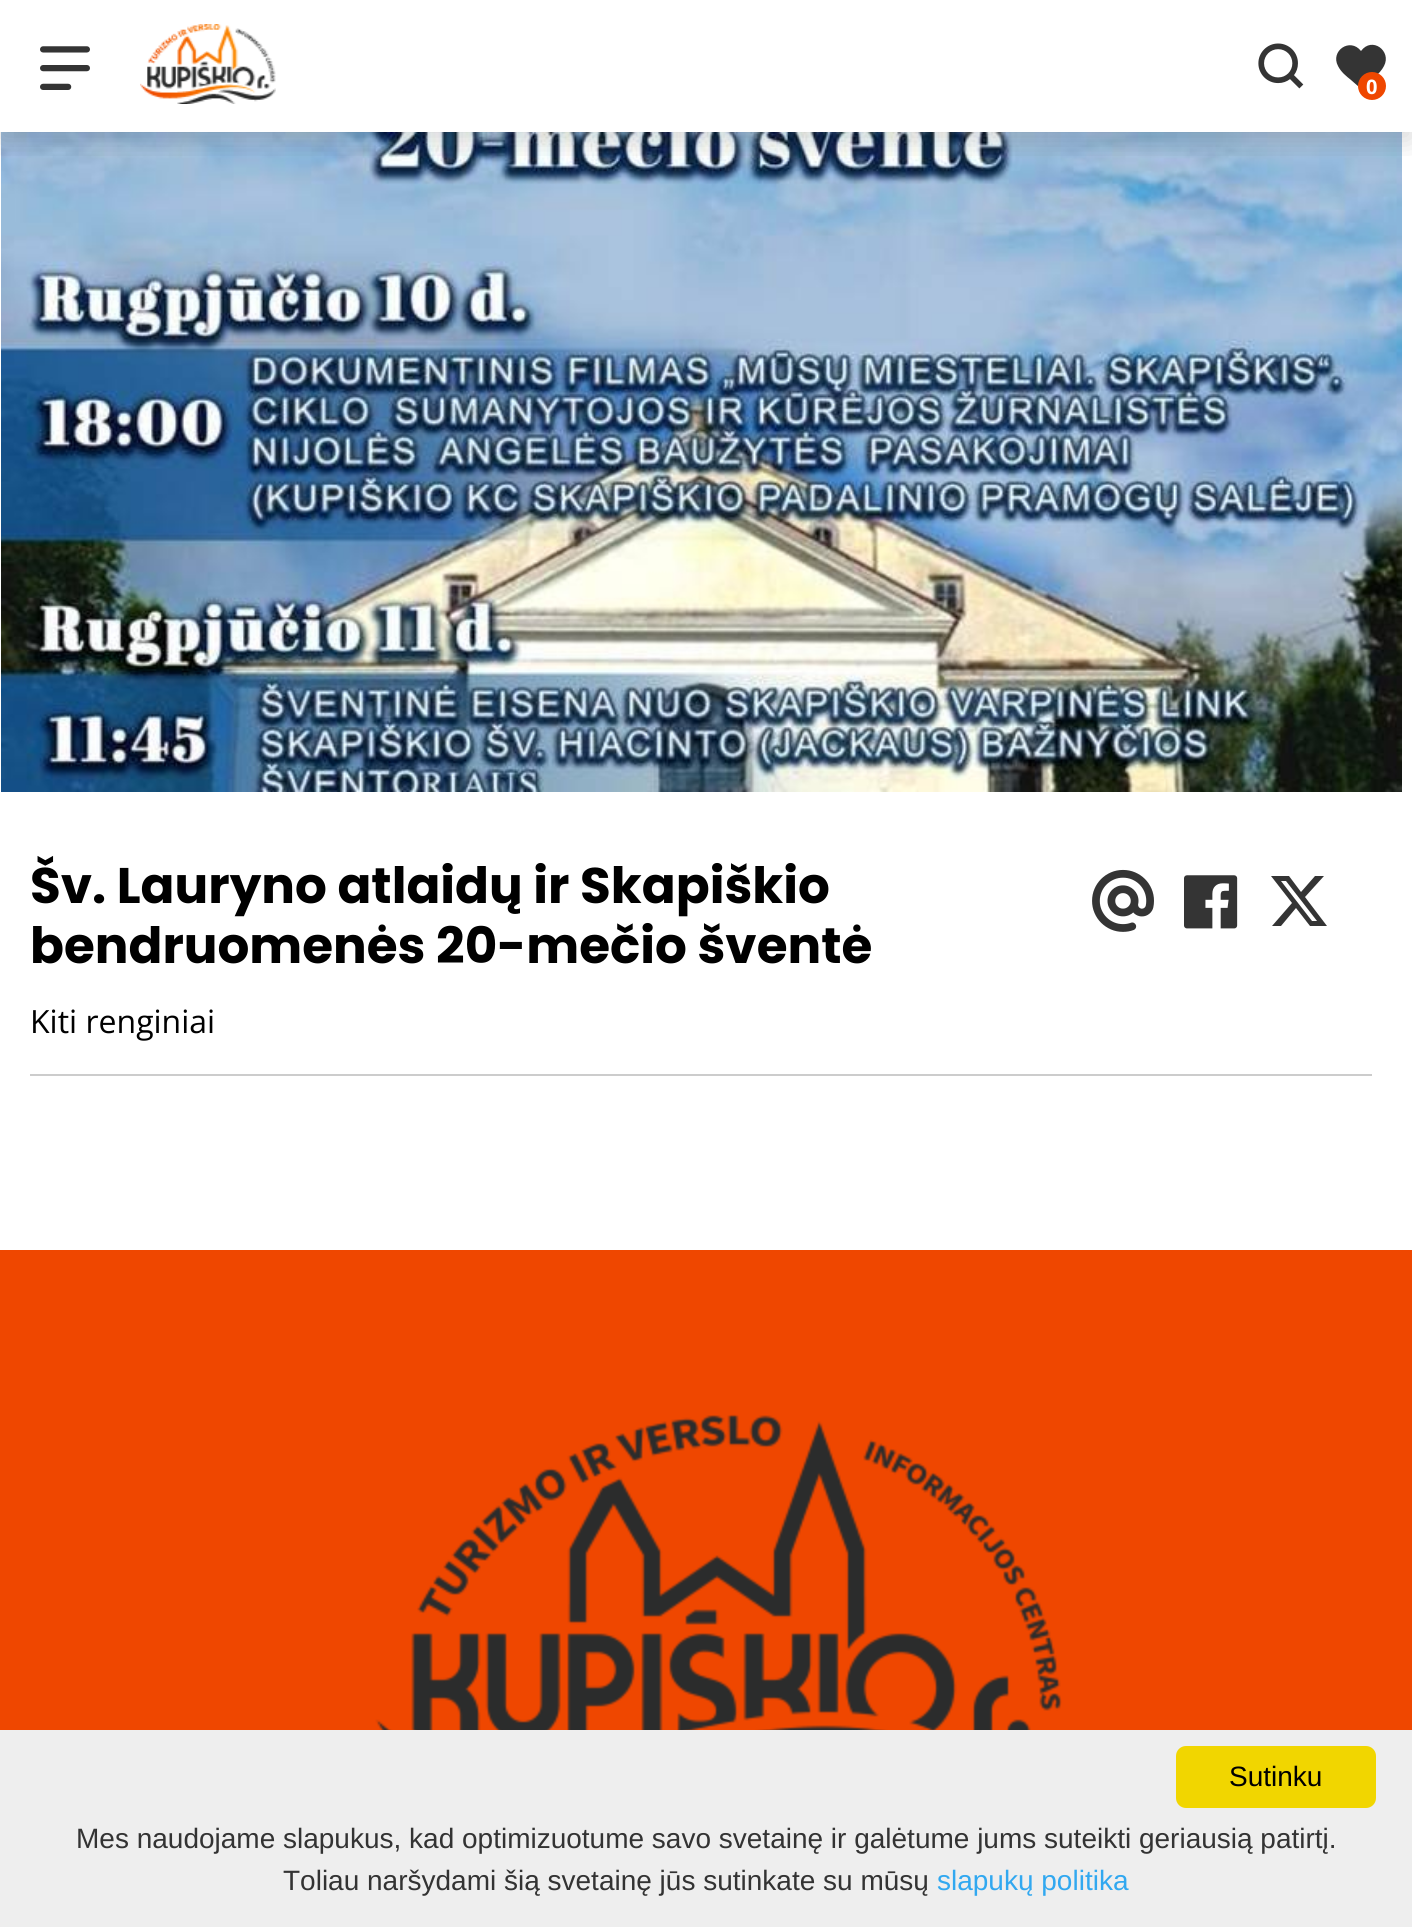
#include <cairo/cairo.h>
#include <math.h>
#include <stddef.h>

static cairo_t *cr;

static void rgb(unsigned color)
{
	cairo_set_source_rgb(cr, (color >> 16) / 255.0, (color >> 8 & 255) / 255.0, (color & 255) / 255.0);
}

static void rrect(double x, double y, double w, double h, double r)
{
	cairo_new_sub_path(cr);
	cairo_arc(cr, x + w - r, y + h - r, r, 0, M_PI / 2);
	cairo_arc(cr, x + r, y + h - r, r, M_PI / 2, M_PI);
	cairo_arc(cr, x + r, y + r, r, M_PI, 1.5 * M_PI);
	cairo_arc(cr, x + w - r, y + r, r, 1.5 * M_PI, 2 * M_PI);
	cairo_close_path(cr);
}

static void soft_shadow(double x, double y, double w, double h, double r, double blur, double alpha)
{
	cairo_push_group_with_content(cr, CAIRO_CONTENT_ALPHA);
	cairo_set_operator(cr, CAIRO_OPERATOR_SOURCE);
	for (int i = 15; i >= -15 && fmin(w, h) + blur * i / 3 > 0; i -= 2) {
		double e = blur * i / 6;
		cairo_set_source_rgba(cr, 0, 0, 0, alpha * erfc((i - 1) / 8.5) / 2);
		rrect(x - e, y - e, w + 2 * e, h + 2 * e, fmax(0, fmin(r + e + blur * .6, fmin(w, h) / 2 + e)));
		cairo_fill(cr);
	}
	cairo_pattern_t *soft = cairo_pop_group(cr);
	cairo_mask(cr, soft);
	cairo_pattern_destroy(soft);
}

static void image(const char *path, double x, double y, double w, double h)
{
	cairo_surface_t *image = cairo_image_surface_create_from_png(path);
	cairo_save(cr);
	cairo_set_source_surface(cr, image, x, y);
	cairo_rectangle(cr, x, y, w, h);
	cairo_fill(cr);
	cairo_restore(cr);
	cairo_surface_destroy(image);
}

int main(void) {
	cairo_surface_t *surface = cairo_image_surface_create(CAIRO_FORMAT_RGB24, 1412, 1927);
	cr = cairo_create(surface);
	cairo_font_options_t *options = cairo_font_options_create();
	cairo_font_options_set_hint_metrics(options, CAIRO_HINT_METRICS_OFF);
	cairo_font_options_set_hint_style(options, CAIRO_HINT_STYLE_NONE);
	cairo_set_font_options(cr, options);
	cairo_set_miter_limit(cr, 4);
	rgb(0xffffff);
	cairo_paint(cr);
	image("img/4.png", 1, 132, 1401, 660);
	cairo_save(cr);
	cairo_rectangle(cr, 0, 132, 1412, 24);
	cairo_clip(cr);
	rgb(0x000000);
	soft_shadow(0, 8, 1412, 132, 0, 14, 0.16);
	cairo_restore(cr);
	image("img/1.png", 40, 46, 50, 44);
	image("img/2.png", 140, 24, 136, 80);
	image("img/3.png", 1258, 43, 46, 46);
	rgb(0x343434);
	cairo_new_path(cr);
	cairo_move_to(cr, 1359, 87);
	cairo_line_to(cr, 1351, 80);
	cairo_curve_to(cr, 1346, 76, 1341, 72, 1338, 66);
	cairo_curve_to(cr, 1330, 51, 1350, 37, 1361, 51);
	cairo_curve_to(cr, 1372, 36, 1392, 51, 1384, 66);
	cairo_curve_to(cr, 1380, 74, 1370, 81, 1363, 87);
	cairo_line_to(cr, 1364, 87);
	cairo_curve_to(cr, 1362, 88, 1360, 88, 1358, 87);
	cairo_close_path(cr);
	cairo_fill(cr);
	rgb(0xef4700);
	cairo_arc(cr, 1372, 86, 14, 0, 2 * M_PI);
	cairo_fill(cr);
	image("img/5.png", 1092, 869, 62, 63);
	image("img/6.png", 1184, 875, 54, 54);
	rgb(0x343434);
	cairo_new_path(cr);
	cairo_move_to(cr, 1315, 876);
	cairo_line_to(cr, 1324, 876);
	cairo_line_to(cr, 1305, 897);
	cairo_line_to(cr, 1327, 926);
	cairo_line_to(cr, 1310, 926);
	cairo_line_to(cr, 1296, 908);
	cairo_line_to(cr, 1281, 926);
	cairo_line_to(cr, 1272, 926);
	cairo_line_to(cr, 1292, 903);
	cairo_line_to(cr, 1271, 876);
	cairo_line_to(cr, 1289, 876);
	cairo_line_to(cr, 1301, 892);
	cairo_close_path(cr);
	cairo_move_to(cr, 1312, 921);
	cairo_line_to(cr, 1317, 921);
	cairo_line_to(cr, 1286, 881);
	cairo_line_to(cr, 1281, 881);
	cairo_close_path(cr);
	cairo_fill(cr);
	rgb(0xcccccc);
	cairo_rectangle(cr, 30, 1074, 1342, 2);
	cairo_fill(cr);
	rgb(0xef4700);
	cairo_rectangle(cr, 0, 1250, 1412, 480);
	cairo_fill(cr);
	image("img/7.png", 375, 1414, 687, 316);
	rgb(0xeeeeee);
	cairo_rectangle(cr, 0, 1730, 1412, 197);
	cairo_fill(cr);
	rgb(0xf1d600);
	rrect(1176, 1746, 200, 62, 10);
	cairo_fill(cr);
	cairo_select_font_face(cr, "Open Sans", CAIRO_FONT_SLANT_NORMAL, CAIRO_FONT_WEIGHT_BOLD);
	cairo_set_font_size(cr, 20);
	rgb(0xffffff);
	cairo_move_to(cr, 1366, 94);
	cairo_show_text(cr, "0");
	cairo_select_font_face(cr, "Poppins", CAIRO_FONT_SLANT_NORMAL, CAIRO_FONT_WEIGHT_BOLD);
	cairo_set_font_size(cr, 50);
	rgb(0x000000);
	cairo_move_to(cr, 30, 903);
	cairo_show_text(cr, "Šv. Lauryno atlaidų ir Skapiškio");
	cairo_move_to(cr, 30, 963);
	cairo_show_text(cr, "bendruomenės 20-mečio šventė");
	cairo_select_font_face(cr, "Open Sans", CAIRO_FONT_SLANT_NORMAL, CAIRO_FONT_WEIGHT_NORMAL);
	cairo_set_font_size(cr, 32);
	cairo_move_to(cr, 30, 1033);
	cairo_show_text(cr, "Kiti renginiai");
	cairo_select_font_face(cr, "Liberation Sans", CAIRO_FONT_SLANT_NORMAL, CAIRO_FONT_WEIGHT_NORMAL);
	cairo_set_font_size(cr, 28);
	cairo_move_to(cr, 1229, 1786);
	cairo_show_text(cr, "Sutinku");
	rgb(0x333333);
	cairo_move_to(cr, 76, 1848);
	cairo_show_text(cr, "Mes naudojame slapukus, kad optimizuotume savo svetainę ir galėtume jums suteikti geriausią patirtį.");
	cairo_move_to(cr, 283, 1890);
	cairo_show_text(cr, "Toliau naršydami šią svetainę jūs sutinkate su mūsų");
	rgb(0x31a8f0);
	cairo_move_to(cr, 937, 1890);
	cairo_show_text(cr, "slapukų politika");
	cairo_surface_write_to_png(surface, "page.png");
	cairo_font_options_destroy(options);
	cairo_destroy(cr);
	cairo_surface_destroy(surface);
	return 0;
}
